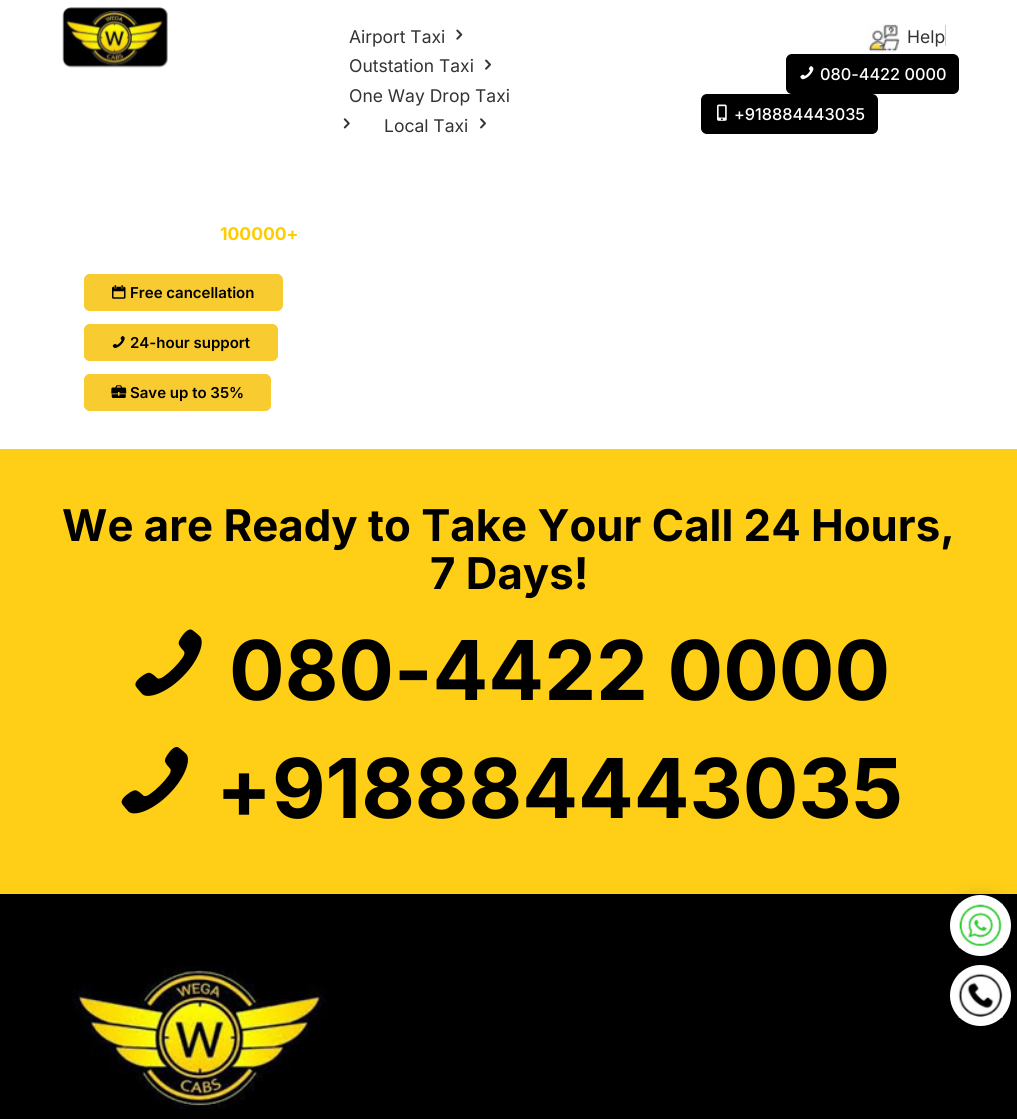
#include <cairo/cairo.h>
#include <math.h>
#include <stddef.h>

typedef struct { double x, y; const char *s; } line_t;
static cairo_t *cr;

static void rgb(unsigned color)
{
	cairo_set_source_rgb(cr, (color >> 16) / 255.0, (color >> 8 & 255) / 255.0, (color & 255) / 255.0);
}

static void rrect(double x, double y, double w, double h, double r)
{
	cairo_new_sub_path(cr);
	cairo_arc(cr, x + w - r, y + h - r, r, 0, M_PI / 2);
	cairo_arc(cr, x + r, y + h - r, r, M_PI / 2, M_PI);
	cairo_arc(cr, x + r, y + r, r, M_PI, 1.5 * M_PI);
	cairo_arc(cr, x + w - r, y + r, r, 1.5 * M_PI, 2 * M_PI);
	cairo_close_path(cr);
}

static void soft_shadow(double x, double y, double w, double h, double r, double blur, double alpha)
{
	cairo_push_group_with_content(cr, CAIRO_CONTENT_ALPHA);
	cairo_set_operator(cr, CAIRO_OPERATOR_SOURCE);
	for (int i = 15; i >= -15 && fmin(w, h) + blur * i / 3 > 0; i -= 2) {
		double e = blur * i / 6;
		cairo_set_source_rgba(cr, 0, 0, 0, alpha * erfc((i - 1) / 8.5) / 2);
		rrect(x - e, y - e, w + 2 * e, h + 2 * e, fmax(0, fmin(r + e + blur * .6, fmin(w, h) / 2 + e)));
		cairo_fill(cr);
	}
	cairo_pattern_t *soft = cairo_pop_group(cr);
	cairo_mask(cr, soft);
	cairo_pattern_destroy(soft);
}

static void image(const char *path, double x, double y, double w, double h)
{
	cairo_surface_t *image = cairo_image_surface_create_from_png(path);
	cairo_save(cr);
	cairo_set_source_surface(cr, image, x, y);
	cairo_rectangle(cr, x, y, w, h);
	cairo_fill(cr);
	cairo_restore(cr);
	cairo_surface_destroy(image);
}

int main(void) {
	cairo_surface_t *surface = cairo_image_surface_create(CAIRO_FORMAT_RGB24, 1017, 1119);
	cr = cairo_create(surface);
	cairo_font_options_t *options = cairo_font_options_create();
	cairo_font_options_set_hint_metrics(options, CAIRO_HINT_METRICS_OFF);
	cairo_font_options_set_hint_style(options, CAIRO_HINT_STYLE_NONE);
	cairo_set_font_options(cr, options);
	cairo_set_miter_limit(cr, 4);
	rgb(0xffffff);
	cairo_paint(cr);
	image("img/1.png", 62, 7, 106, 61);
	image("img/2.png", 456, 29, 7, 11);
	image("img/3.png", 485, 59, 6, 11);
	image("img/4.png", 343, 118, 7, 11);
	image("img/5.png", 480, 118, 6, 11);
	image("img/6.png", 867, 24, 33, 29);
	rgb(0xcccccc);
	cairo_rectangle(cr, 945, 25, 1, 21);
	cairo_fill(cr);
	rgb(0x000000);
	rrect(786, 54, 173, 40, 6);
	cairo_fill(cr);
	image("img/7.png", 800, 66, 14, 14);
	rrect(701, 94, 177, 40, 6);
	cairo_fill(cr);
	image("img/8.png", 717, 104, 10, 17);
	rgb(0xf8cc31);
	rrect(84, 274, 199, 37, 6);
	cairo_fill(cr);
	cairo_set_fill_rule(cr, CAIRO_FILL_RULE_EVEN_ODD);
	cairo_new_path(cr);
	cairo_move_to(cr, 90, 274);
	cairo_line_to(cr, 276, 274);
	cairo_curve_to(cr, 280, 274, 282, 277, 282, 280);
	cairo_line_to(cr, 282, 305);
	cairo_curve_to(cr, 282, 308, 280, 311, 276, 311);
	cairo_line_to(cr, 90, 311);
	cairo_curve_to(cr, 87, 311, 84, 308, 84, 305);
	cairo_line_to(cr, 84, 280);
	cairo_curve_to(cr, 84, 277, 87, 274, 90, 274);
	cairo_close_path(cr);
	cairo_move_to(cr, 90, 276);
	cairo_line_to(cr, 276, 276);
	cairo_curve_to(cr, 278, 276, 280, 278, 280, 280);
	cairo_line_to(cr, 280, 305);
	cairo_curve_to(cr, 280, 308, 278, 311, 276, 311);
	cairo_line_to(cr, 90, 311);
	cairo_curve_to(cr, 88, 311, 86, 308, 86, 305);
	cairo_line_to(cr, 86, 280);
	cairo_curve_to(cr, 86, 278, 88, 276, 90, 276);
	cairo_close_path(cr);
	cairo_fill(cr);
	image("img/9.png", 112, 285, 14, 14);
	rrect(84, 324, 194, 37, 6);
	cairo_fill(cr);
	cairo_new_path(cr);
	cairo_move_to(cr, 90, 324);
	cairo_line_to(cr, 271, 324);
	cairo_curve_to(cr, 275, 324, 278, 327, 278, 330);
	cairo_line_to(cr, 278, 355);
	cairo_curve_to(cr, 278, 358, 275, 361, 271, 361);
	cairo_line_to(cr, 90, 361);
	cairo_curve_to(cr, 87, 361, 84, 358, 84, 355);
	cairo_line_to(cr, 84, 330);
	cairo_curve_to(cr, 84, 327, 87, 324, 90, 324);
	cairo_close_path(cr);
	cairo_move_to(cr, 90, 326);
	cairo_line_to(cr, 271, 326);
	cairo_curve_to(cr, 273, 326, 275, 328, 275, 330);
	cairo_line_to(cr, 275, 355);
	cairo_curve_to(cr, 275, 358, 273, 361, 271, 361);
	cairo_line_to(cr, 90, 361);
	cairo_curve_to(cr, 88, 361, 86, 358, 86, 355);
	cairo_line_to(cr, 86, 330);
	cairo_curve_to(cr, 86, 328, 88, 326, 90, 326);
	cairo_close_path(cr);
	cairo_fill(cr);
	image("img/10.png", 112, 336, 13, 12);
	rrect(84, 374, 187, 37, 6);
	cairo_fill(cr);
	cairo_new_path(cr);
	cairo_move_to(cr, 90, 374);
	cairo_line_to(cr, 265, 374);
	cairo_curve_to(cr, 268, 374, 271, 377, 271, 380);
	cairo_line_to(cr, 271, 405);
	cairo_curve_to(cr, 271, 408, 268, 411, 265, 411);
	cairo_line_to(cr, 90, 411);
	cairo_curve_to(cr, 87, 411, 84, 408, 84, 405);
	cairo_line_to(cr, 84, 380);
	cairo_curve_to(cr, 84, 377, 87, 374, 90, 374);
	cairo_close_path(cr);
	cairo_move_to(cr, 90, 376);
	cairo_line_to(cr, 265, 376);
	cairo_curve_to(cr, 267, 376, 269, 378, 269, 380);
	cairo_line_to(cr, 269, 405);
	cairo_curve_to(cr, 269, 408, 267, 411, 265, 411);
	cairo_line_to(cr, 90, 411);
	cairo_curve_to(cr, 88, 411, 86, 408, 86, 405);
	cairo_line_to(cr, 86, 380);
	cairo_curve_to(cr, 86, 378, 88, 376, 90, 376);
	cairo_close_path(cr);
	cairo_fill(cr);
	image("img/11.png", 111, 385, 16, 13);
	rgb(0xffcf17);
	cairo_rectangle(cr, 0, 449, 1017, 445);
	cairo_fill(cr);
	image("img/12.png", 135, 629, 67, 67);
	image("img/13.png", 121, 747, 67, 67);
	rgb(0x000000);
	cairo_rectangle(cr, 0, 894, 1017, 225);
	cairo_fill(cr);
	rgb(0x000000);
	soft_shadow(950, 895, 61, 61, 30.5, 9, 0.13);
	rgb(0xffffff);
	cairo_arc(cr, 980.5, 925.5, 30.5, 0, 2 * M_PI);
	cairo_fill(cr);
	image("img/14.png", 958, 903, 45, 45);
	cairo_arc(cr, 980.5, 995.5, 30.5, 0, 2 * M_PI);
	cairo_fill(cr);
	image("img/15.png", 958, 973, 45, 45);
	image("img/16.png", 72, 965, 255, 144);
	cairo_select_font_face(cr, "Inter", CAIRO_FONT_SLANT_NORMAL, CAIRO_FONT_WEIGHT_NORMAL);
	cairo_set_font_size(cr, 17.5);
	rgb(0x333333);
	{
		static const line_t items[] = {
			{349, 43, "Airport Taxi"},
			{349, 72, "Outstation Taxi"},
			{349, 102, "One Way Drop Taxi"},
			{384, 132, "Local Taxi"},
			{907, 43, "Help"},
		};
		for (size_t i = 0; i < sizeof items / sizeof *items; i++) {
			cairo_move_to(cr, items[i].x, items[i].y);
			cairo_show_text(cr, items[i].s);
		}
	}
	cairo_select_font_face(cr, "Inter Medium", CAIRO_FONT_SLANT_NORMAL, CAIRO_FONT_WEIGHT_NORMAL);
	cairo_set_font_size(cr, 16.25);
	rgb(0xffffff);
	cairo_move_to(cr, 820, 80);
	cairo_show_text(cr, "080-4422 0000");
	cairo_move_to(cr, 734, 120);
	cairo_show_text(cr, "+918884443035");
	cairo_select_font_face(cr, "Inter", CAIRO_FONT_SLANT_NORMAL, CAIRO_FONT_WEIGHT_BOLD);
	cairo_set_font_size(cr, 17.5);
	rgb(0xffcc00);
	cairo_move_to(cr, 220, 240);
	cairo_show_text(cr, "100000+");
	cairo_select_font_face(cr, "Inter SemiBold", CAIRO_FONT_SLANT_NORMAL, CAIRO_FONT_WEIGHT_NORMAL);
	cairo_set_font_size(cr, 15);
	rgb(0x000000);
	{
		static const line_t items[] = {
			{130, 298, "Free cancellation"},
			{130, 348, "24-hour support"},
			{130, 398, "Save up to 35%"},
		};
		for (size_t i = 0; i < sizeof items / sizeof *items; i++) {
			cairo_move_to(cr, items[i].x, items[i].y);
			cairo_show_text(cr, items[i].s);
		}
	}
	cairo_select_font_face(cr, "Inter", CAIRO_FONT_SLANT_NORMAL, CAIRO_FONT_WEIGHT_BOLD);
	cairo_set_font_size(cr, 43.75);
	cairo_move_to(cr, 62, 541);
	cairo_show_text(cr, "We are Ready to Take Your Call 24 Hours,");
	cairo_move_to(cr, 430, 589);
	cairo_show_text(cr, "7 Days!");
	cairo_set_font_size(cr, 82.5);
	cairo_move_to(cr, 229, 700);
	cairo_show_text(cr, "080-4422 0000");
	cairo_move_to(cr, 216, 818);
	cairo_show_text(cr, "+918884443035");
	cairo_surface_write_to_png(surface, "page.png");
	cairo_font_options_destroy(options);
	cairo_destroy(cr);
	cairo_surface_destroy(surface);
	return 0;
}
